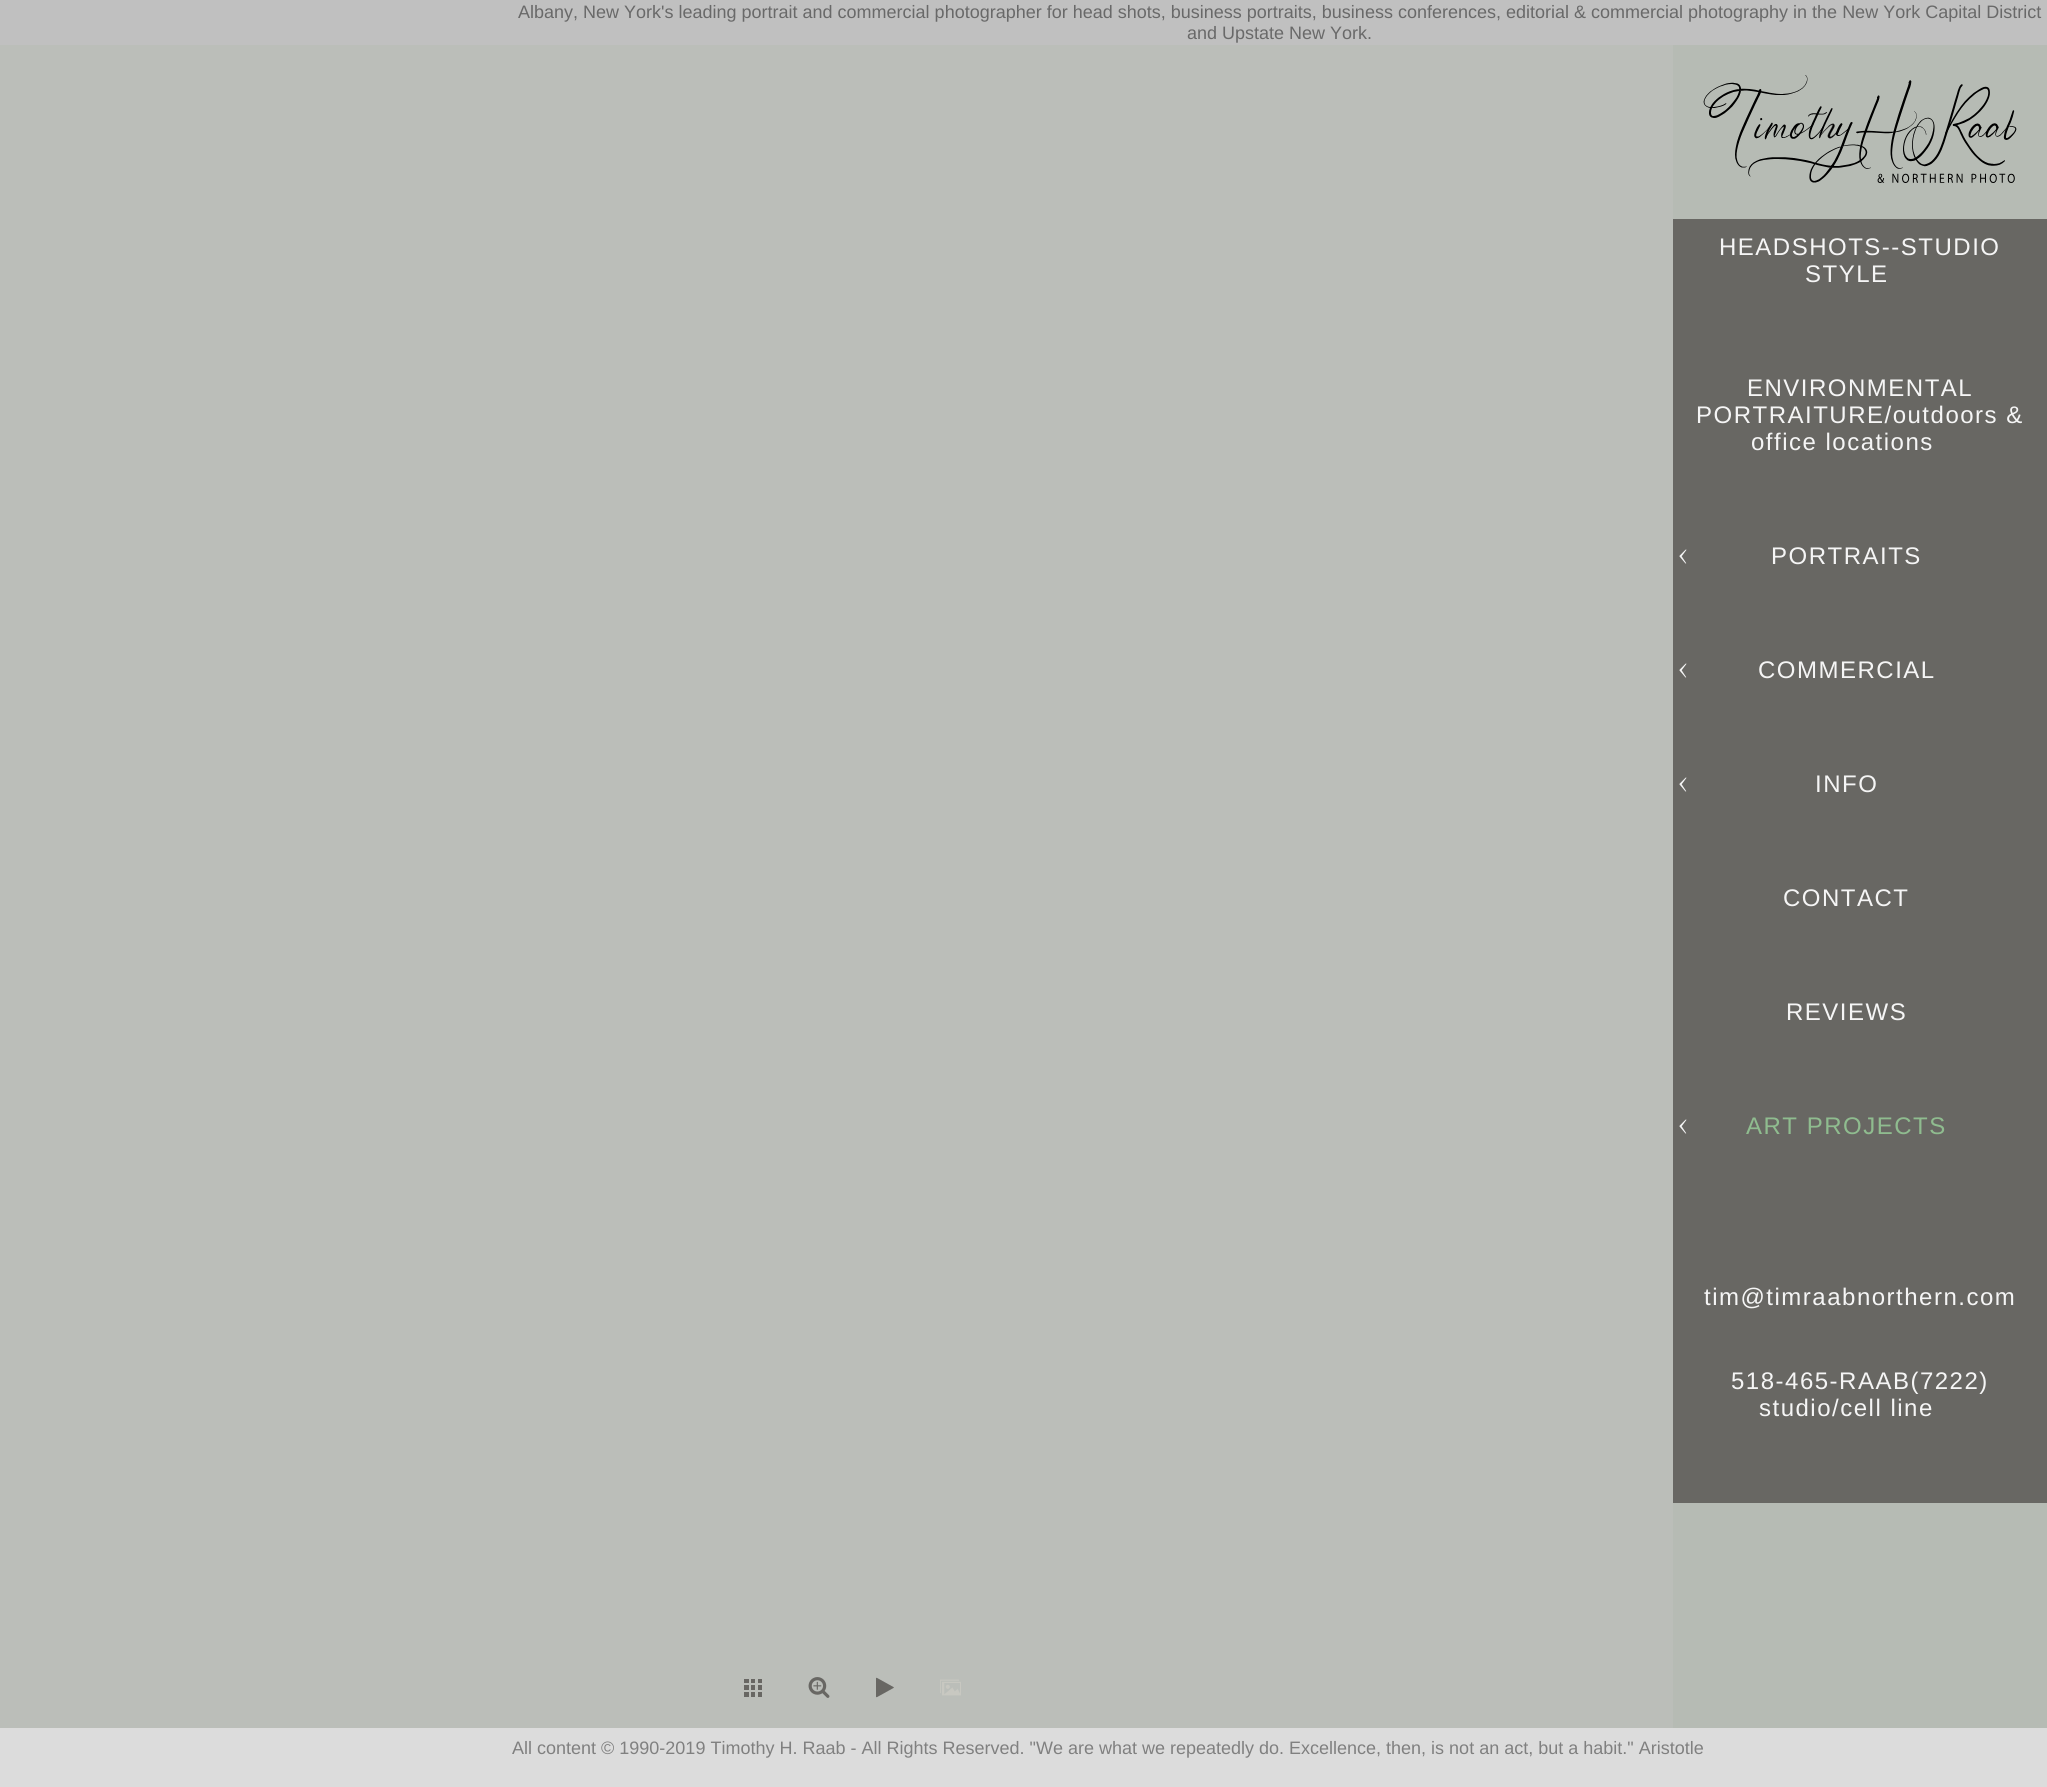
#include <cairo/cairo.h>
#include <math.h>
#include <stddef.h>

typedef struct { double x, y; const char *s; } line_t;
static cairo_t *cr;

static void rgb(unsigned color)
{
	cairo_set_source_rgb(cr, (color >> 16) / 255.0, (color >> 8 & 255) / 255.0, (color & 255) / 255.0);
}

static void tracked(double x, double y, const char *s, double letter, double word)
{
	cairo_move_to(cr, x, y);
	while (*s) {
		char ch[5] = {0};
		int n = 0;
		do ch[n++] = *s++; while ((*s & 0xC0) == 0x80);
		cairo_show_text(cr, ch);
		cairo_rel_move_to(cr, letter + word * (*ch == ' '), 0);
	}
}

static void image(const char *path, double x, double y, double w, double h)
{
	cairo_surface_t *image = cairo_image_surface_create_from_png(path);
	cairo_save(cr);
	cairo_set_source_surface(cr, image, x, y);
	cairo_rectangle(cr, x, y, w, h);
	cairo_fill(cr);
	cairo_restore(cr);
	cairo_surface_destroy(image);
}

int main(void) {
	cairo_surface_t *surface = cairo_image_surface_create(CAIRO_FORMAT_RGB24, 2047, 1787);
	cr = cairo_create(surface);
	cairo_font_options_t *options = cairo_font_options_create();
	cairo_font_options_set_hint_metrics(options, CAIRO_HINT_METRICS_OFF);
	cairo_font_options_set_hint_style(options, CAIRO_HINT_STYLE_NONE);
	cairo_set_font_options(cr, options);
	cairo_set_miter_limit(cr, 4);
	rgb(0xbbbeb9);
	cairo_paint(cr);
	rgb(0xc0c0c0);
	cairo_rectangle(cr, 0, 0, 2047, 45);
	cairo_fill(cr);
	rgb(0xb6bbb4);
	cairo_rectangle(cr, 1673, 45, 374, 1683);
	cairo_fill(cr);
	image("img/1.png", 1703, 75, 314, 108);
	rgb(0x686763);
	cairo_rectangle(cr, 1673, 219, 374, 1284);
	cairo_fill(cr);
	image("img/2.png", 1679, 549, 8, 15);
	image("img/2.png", 1679, 663, 8, 15);
	image("img/2.png", 1679, 777, 8, 15);
	image("img/2.png", 1679, 1119, 8, 15);
	image("img/3.png", 744, 1679, 18, 18);
	image("img/4.png", 808, 1677, 22, 21);
	image("img/5.png", 876, 1677, 18, 21);
	image("img/6.png", 940, 1679, 21, 17);
	rgb(0xdcdcdc);
	cairo_rectangle(cr, 0, 1728, 2047, 59);
	cairo_fill(cr);
	cairo_select_font_face(cr, "Liberation Sans", CAIRO_FONT_SLANT_NORMAL, CAIRO_FONT_WEIGHT_NORMAL);
	cairo_set_font_size(cr, 18);
	rgb(0x696969);
	cairo_move_to(cr, 518, 18);
	cairo_show_text(cr, "Albany, New York's leading portrait and commercial photographer for head shots, business portraits, business conferences, editorial & commercial photography in the New York Capital District");
	cairo_move_to(cr, 1187, 39);
	cairo_show_text(cr, "and Upstate New York.");
	cairo_set_font_size(cr, 24);
	rgb(0xf5f5f5);
	{
		static const line_t items[] = {
			{1719, 255, "HEADSHOTS--STUDIO"},
			{1805, 282, "STYLE"},
			{1747, 396, "ENVIRONMENTAL"},
			{1696, 423, "PORTRAITURE/outdoors &"},
			{1751, 450, "office locations"},
			{1771, 564, "PORTRAITS"},
			{1758, 678, "COMMERCIAL"},
			{1815, 792, "INFO"},
			{1783, 906, "CONTACT"},
			{1786, 1020, "REVIEWS"},
		};
		for (size_t i = 0; i < sizeof items / sizeof *items; i++) {
			tracked(items[i].x, items[i].y, items[i].s, 1.5, 0);
		}
	}
	rgb(0x8fbc8f);
	tracked(1746, 1134, "ART PROJECTS", 1.5, 0);
	rgb(0xf5f5f5);
	{
		static const line_t items[] = {
			{1704, 1305, "tim@timraabnorthern.com"},
			{1731, 1389, "518-465-RAAB(7222)"},
			{1759, 1416, "studio/cell line"},
		};
		for (size_t i = 0; i < sizeof items / sizeof *items; i++) {
			tracked(items[i].x, items[i].y, items[i].s, 1.5, 0);
		}
	}
	cairo_set_font_size(cr, 18);
	rgb(0x808080);
	cairo_move_to(cr, 512, 1754);
	cairo_show_text(cr, "All content © 1990-2019 Timothy H. Raab - All Rights Reserved. \"We are what we repeatedly do. Excellence, then, is not an act, but a habit.\" Aristotle");
	cairo_surface_write_to_png(surface, "page.png");
	cairo_font_options_destroy(options);
	cairo_destroy(cr);
	cairo_surface_destroy(surface);
	return 0;
}
